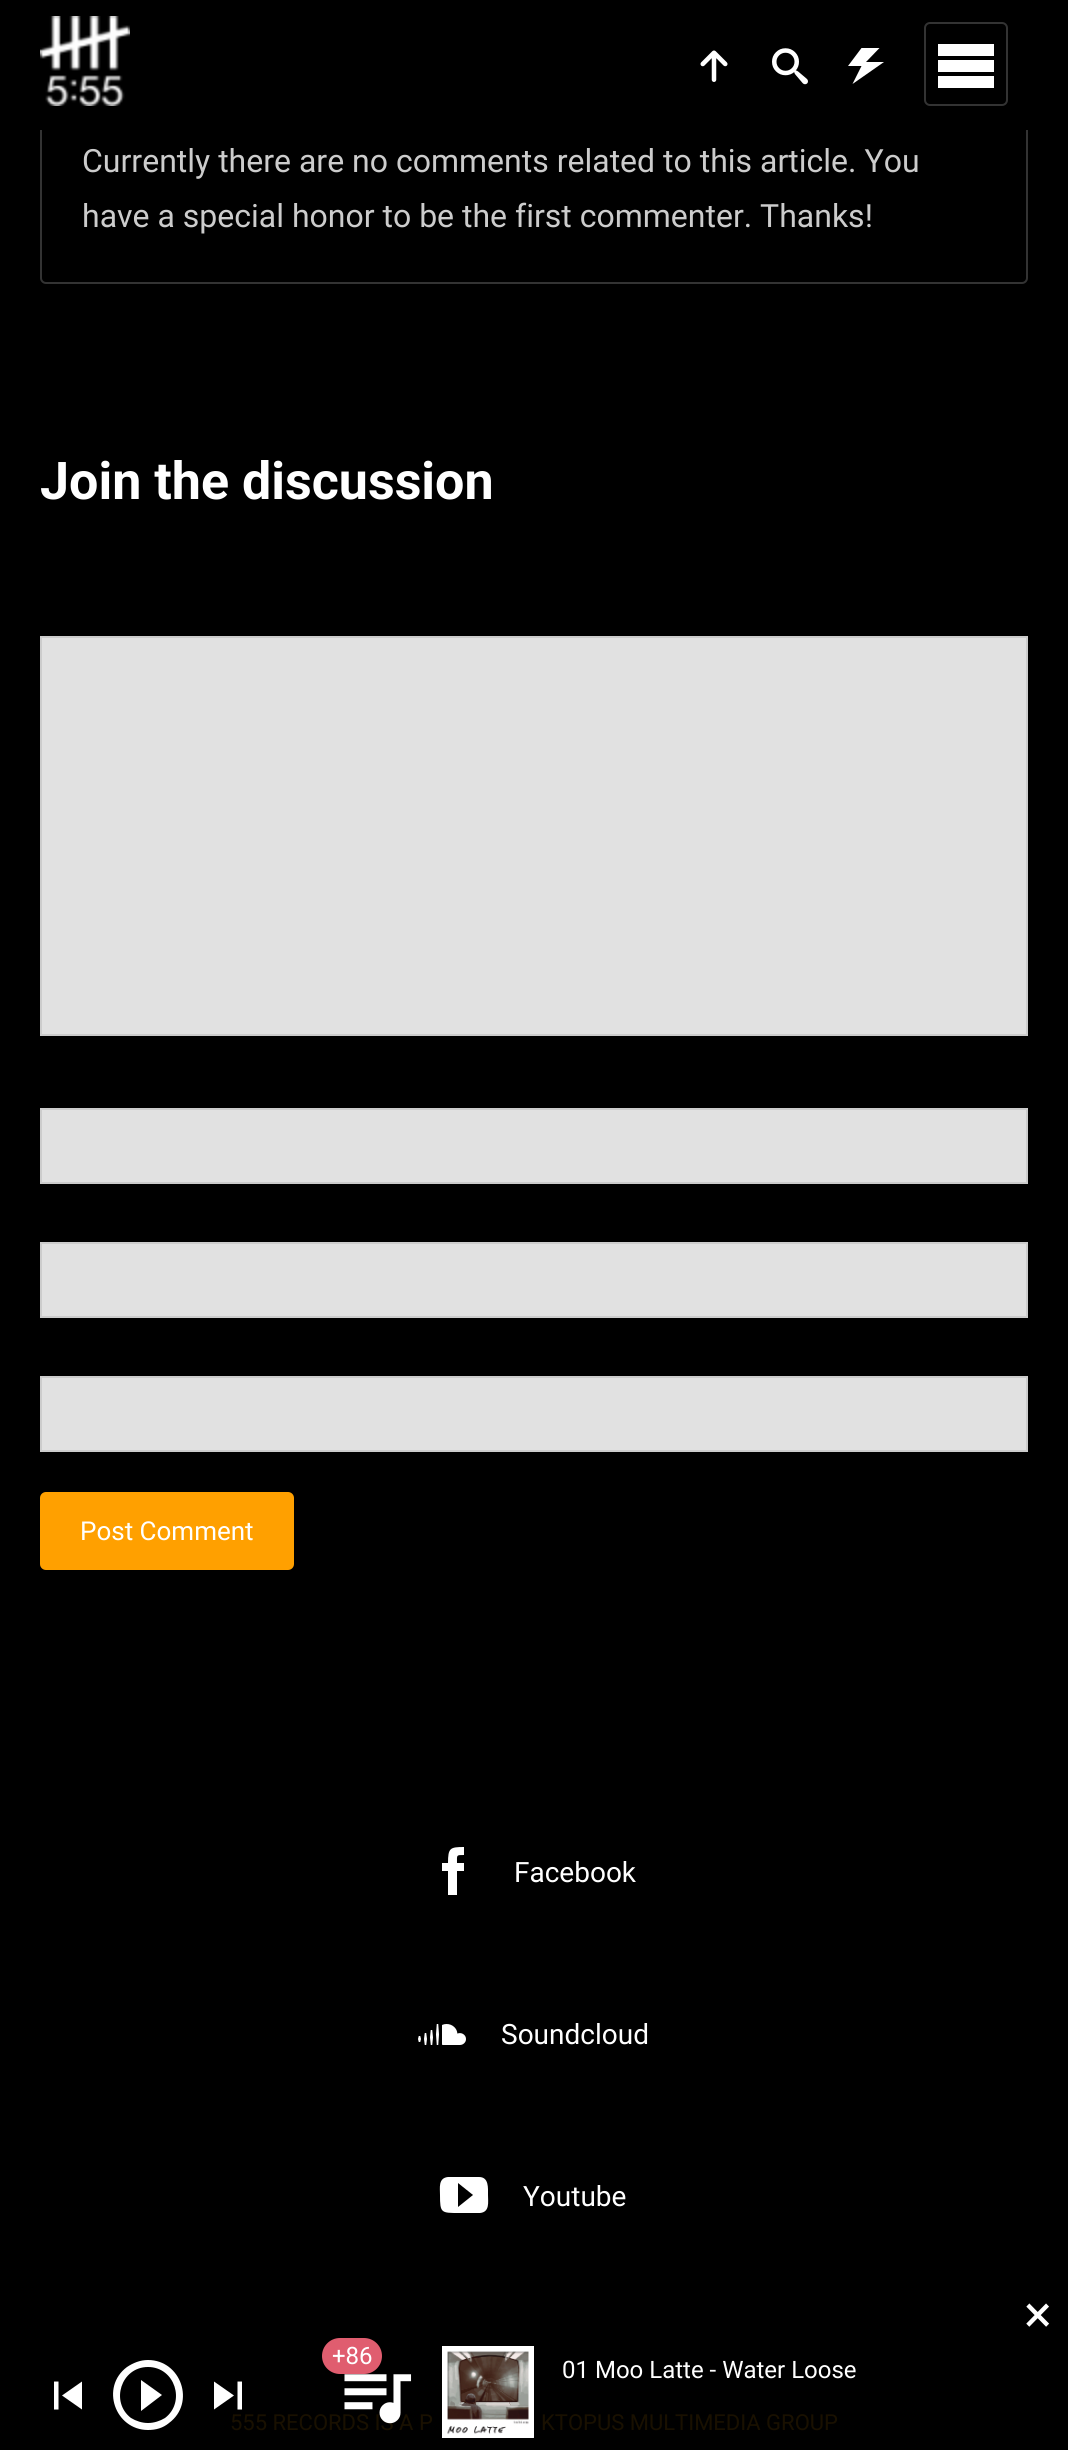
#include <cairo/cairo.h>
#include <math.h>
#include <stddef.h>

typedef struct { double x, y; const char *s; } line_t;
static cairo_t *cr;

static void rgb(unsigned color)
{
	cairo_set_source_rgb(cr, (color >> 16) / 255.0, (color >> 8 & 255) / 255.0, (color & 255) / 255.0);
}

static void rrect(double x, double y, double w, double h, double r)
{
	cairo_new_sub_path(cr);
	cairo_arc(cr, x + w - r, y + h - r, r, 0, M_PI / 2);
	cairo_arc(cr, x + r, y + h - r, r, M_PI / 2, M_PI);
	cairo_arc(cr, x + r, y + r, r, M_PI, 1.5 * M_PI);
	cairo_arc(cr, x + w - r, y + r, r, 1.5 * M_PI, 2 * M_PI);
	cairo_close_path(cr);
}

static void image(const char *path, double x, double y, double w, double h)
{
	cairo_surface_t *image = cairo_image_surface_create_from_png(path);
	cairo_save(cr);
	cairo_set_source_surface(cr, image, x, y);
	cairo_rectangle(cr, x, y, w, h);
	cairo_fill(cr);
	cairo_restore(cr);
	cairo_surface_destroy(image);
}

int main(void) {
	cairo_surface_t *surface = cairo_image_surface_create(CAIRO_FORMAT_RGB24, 1068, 2450);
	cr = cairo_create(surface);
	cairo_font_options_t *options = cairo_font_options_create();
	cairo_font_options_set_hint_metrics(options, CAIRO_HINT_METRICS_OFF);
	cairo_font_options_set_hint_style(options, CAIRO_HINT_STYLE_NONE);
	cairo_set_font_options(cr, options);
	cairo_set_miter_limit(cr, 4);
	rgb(0x000000);
	cairo_paint(cr);
	rrect(41, 93, 986, 190, 5);
	rgb(0x333333);
	cairo_stroke(cr);
	rgb(0x000000);
	cairo_rectangle(cr, 40, 92, 988, 38);
	cairo_fill(cr);
	image("img/1.png", 40, 16, 90, 90);
	image("img/2.png", 700, 50, 28, 32);
	image("img/3.png", 772, 48, 36, 37);
	rgb(0xffffff);
	cairo_new_path(cr);
	cairo_move_to(cr, 861.5, 48);
	cairo_line_to(cr, 848, 66);
	cairo_line_to(cr, 861.5, 66);
	cairo_line_to(cr, 852.5, 84);
	cairo_line_to(cr, 884, 62);
	cairo_line_to(cr, 866, 62);
	cairo_line_to(cr, 879.5, 48);
	cairo_close_path(cr);
	cairo_fill(cr);
	rrect(925, 23, 82, 82, 5);
	rgb(0x333333);
	cairo_stroke(cr);
	rgb(0xffffff);
	cairo_new_path(cr);
	cairo_move_to(cr, 938, 44);
	cairo_line_to(cr, 994, 44);
	cairo_line_to(cr, 994, 56);
	cairo_line_to(cr, 938, 56);
	cairo_close_path(cr);
	cairo_move_to(cr, 938, 60);
	cairo_line_to(cr, 994, 60);
	cairo_line_to(cr, 994, 72);
	cairo_line_to(cr, 938, 72);
	cairo_close_path(cr);
	cairo_move_to(cr, 938, 76);
	cairo_line_to(cr, 994, 76);
	cairo_line_to(cr, 994, 88);
	cairo_line_to(cr, 938, 88);
	cairo_close_path(cr);
	cairo_fill(cr);
	rgb(0xe1e1e1);
	cairo_rectangle(cr, 41, 637, 986, 398);
	cairo_fill_preserve(cr);
	rgb(0xcccccc);
	cairo_stroke(cr);
	rgb(0xe1e1e1);
	cairo_rectangle(cr, 41, 1109, 986, 74);
	cairo_fill_preserve(cr);
	rgb(0xcccccc);
	cairo_stroke(cr);
	rgb(0xe1e1e1);
	cairo_rectangle(cr, 41, 1243, 986, 74);
	cairo_fill_preserve(cr);
	rgb(0xcccccc);
	cairo_stroke(cr);
	rgb(0xe1e1e1);
	cairo_rectangle(cr, 41, 1377, 986, 74);
	cairo_fill_preserve(cr);
	rgb(0xcccccc);
	cairo_stroke(cr);
	rgb(0xffa000);
	rrect(40, 1492, 254, 78, 6);
	cairo_fill(cr);
	rgb(0xffffff);
	cairo_new_path(cr);
	cairo_move_to(cr, 457, 1895);
	cairo_line_to(cr, 448, 1895);
	cairo_line_to(cr, 448, 1871);
	cairo_line_to(cr, 442, 1871);
	cairo_line_to(cr, 442, 1863);
	cairo_line_to(cr, 448, 1863);
	cairo_curve_to(cr, 448, 1848, 450, 1847, 464, 1847);
	cairo_line_to(cr, 464, 1855);
	cairo_curve_to(cr, 456, 1855, 457, 1855, 457, 1863);
	cairo_line_to(cr, 464, 1863);
	cairo_line_to(cr, 464, 1871);
	cairo_line_to(cr, 457, 1871);
	cairo_close_path(cr);
	cairo_fill(cr);
	image("img/4.png", 418, 2024, 48, 21);
	cairo_new_path(cr);
	cairo_move_to(cr, 479, 2177);
	cairo_line_to(cr, 448, 2177);
	cairo_curve_to(cr, 438, 2178, 440, 2188, 440, 2195);
	cairo_curve_to(cr, 440, 2213, 441, 2213, 459, 2213);
	cairo_line_to(cr, 480, 2213);
	cairo_curve_to(cr, 490, 2212, 488, 2202, 488, 2195);
	cairo_curve_to(cr, 488, 2188, 489, 2177, 479, 2177);
	cairo_close_path(cr);
	cairo_move_to(cr, 458, 2207);
	cairo_line_to(cr, 458, 2183);
	cairo_line_to(cr, 473, 2195);
	cairo_close_path(cr);
	cairo_fill(cr);
	rgb(0xe05d6f);
	rrect(322, 2338, 60, 36, 18);
	cairo_fill(cr);
	rgb(0xffffff);
	cairo_new_path(cr);
	cairo_move_to(cr, 54, 2381.5);
	cairo_line_to(cr, 58.5, 2381.5);
	cairo_line_to(cr, 58.5, 2409.5);
	cairo_line_to(cr, 54, 2409.5);
	cairo_close_path(cr);
	cairo_move_to(cr, 62, 2395.5);
	cairo_line_to(cr, 82, 2409.5);
	cairo_line_to(cr, 82, 2381.5);
	cairo_close_path(cr);
	cairo_fill(cr);
	cairo_new_path(cr);
	cairo_move_to(cr, 141, 2411);
	cairo_line_to(cr, 162, 2395);
	cairo_line_to(cr, 141, 2380);
	cairo_close_path(cr);
	cairo_move_to(cr, 148, 2360);
	cairo_curve_to(cr, 140, 2360, 133, 2363, 127, 2367);
	cairo_curve_to(cr, 100, 2387, 115, 2430, 148, 2430);
	cairo_curve_to(cr, 156, 2430, 163, 2428, 169, 2423);
	cairo_curve_to(cr, 196, 2403, 181, 2360, 148, 2360);
	cairo_close_path(cr);
	cairo_move_to(cr, 148, 2423);
	cairo_curve_to(cr, 142, 2423, 136, 2421, 131, 2418);
	cairo_curve_to(cr, 110, 2402, 121, 2367, 148, 2367);
	cairo_curve_to(cr, 175, 2367, 186, 2402, 165, 2418);
	cairo_curve_to(cr, 160, 2421, 154, 2423, 148, 2423);
	cairo_close_path(cr);
	cairo_fill(cr);
	cairo_new_path(cr);
	cairo_move_to(cr, 214, 2409.5);
	cairo_line_to(cr, 234, 2395.5);
	cairo_line_to(cr, 214, 2381.5);
	cairo_close_path(cr);
	cairo_move_to(cr, 237.5, 2381.5);
	cairo_line_to(cr, 237.5, 2409.5);
	cairo_line_to(cr, 242, 2409.5);
	cairo_line_to(cr, 242, 2381.5);
	cairo_close_path(cr);
	cairo_fill(cr);
	image("img/6.png", 442, 2346, 92, 92);
	cairo_select_font_face(cr, "Roboto", CAIRO_FONT_SLANT_NORMAL, CAIRO_FONT_WEIGHT_NORMAL);
	cairo_set_font_size(cr, 32);
	rgb(0xcccccc);
	cairo_move_to(cr, 82, 172);
	cairo_show_text(cr, "Currently there are no comments related to this article. You");
	cairo_move_to(cr, 82, 227);
	cairo_show_text(cr, "have a special honor to be the first commenter. Thanks!");
	cairo_select_font_face(cr, "Roboto", CAIRO_FONT_SLANT_NORMAL, CAIRO_FONT_WEIGHT_BOLD);
	cairo_set_font_size(cr, 52);
	rgb(0xffffff);
	cairo_move_to(cr, 40, 499);
	cairo_show_text(cr, "Join the discussion");
	cairo_select_font_face(cr, "Roboto", CAIRO_FONT_SLANT_NORMAL, CAIRO_FONT_WEIGHT_NORMAL);
	cairo_set_font_size(cr, 26);
	cairo_move_to(cr, 80, 1540);
	cairo_show_text(cr, "Post Comment");
	cairo_set_font_size(cr, 28);
	{
		static const line_t items[] = {
			{514, 1882, "Facebook"},
			{501, 2044, "Soundcloud"},
			{523, 2206, "Youtube"},
		};
		for (size_t i = 0; i < sizeof items / sizeof *items; i++) {
			cairo_move_to(cr, items[i].x, items[i].y);
			cairo_show_text(cr, items[i].s);
		}
	}
	cairo_set_font_size(cr, 22);
	rgb(0x191000);
	cairo_move_to(cr, 230, 2430);
	cairo_show_text(cr, "555 RECORDS IS A P");
	cairo_move_to(cr, 541, 2430);
	cairo_show_text(cr, "KTOPUS MULTIMEDIA GROUP");
	cairo_set_font_size(cr, 52);
	rgb(0xffffff);
	cairo_move_to(cr, 1024, 2332);
	cairo_show_text(cr, "×");
	cairo_set_font_size(cr, 24);
	cairo_move_to(cr, 332, 2364);
	cairo_show_text(cr, "+86");
	image("img/5.png", 344, 2374, 68, 50);
	cairo_move_to(cr, 562, 2378);
	cairo_show_text(cr, "01 Moo Latte - Water Loose");
	cairo_surface_write_to_png(surface, "page.png");
	cairo_font_options_destroy(options);
	cairo_destroy(cr);
	cairo_surface_destroy(surface);
	return 0;
}
